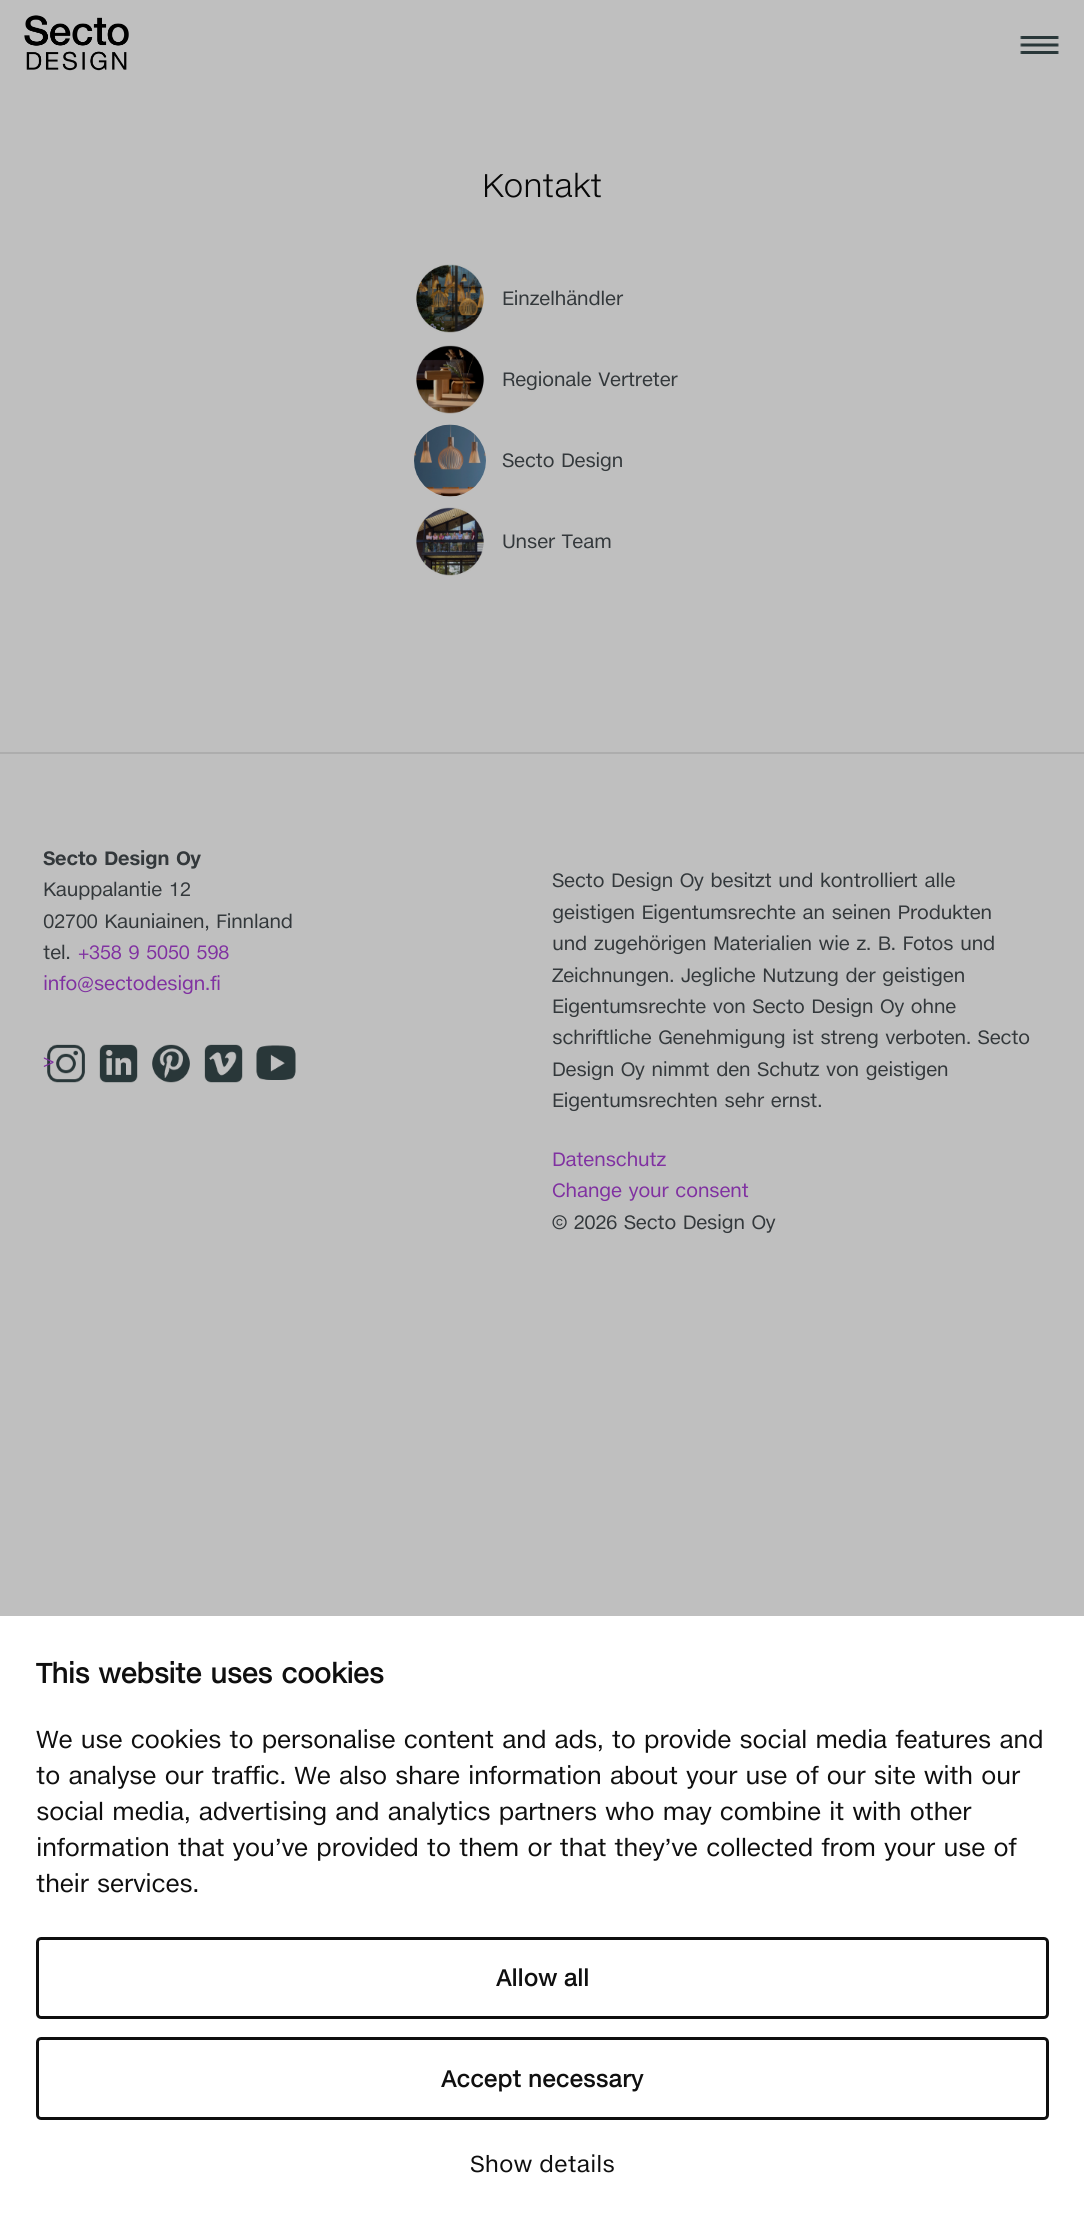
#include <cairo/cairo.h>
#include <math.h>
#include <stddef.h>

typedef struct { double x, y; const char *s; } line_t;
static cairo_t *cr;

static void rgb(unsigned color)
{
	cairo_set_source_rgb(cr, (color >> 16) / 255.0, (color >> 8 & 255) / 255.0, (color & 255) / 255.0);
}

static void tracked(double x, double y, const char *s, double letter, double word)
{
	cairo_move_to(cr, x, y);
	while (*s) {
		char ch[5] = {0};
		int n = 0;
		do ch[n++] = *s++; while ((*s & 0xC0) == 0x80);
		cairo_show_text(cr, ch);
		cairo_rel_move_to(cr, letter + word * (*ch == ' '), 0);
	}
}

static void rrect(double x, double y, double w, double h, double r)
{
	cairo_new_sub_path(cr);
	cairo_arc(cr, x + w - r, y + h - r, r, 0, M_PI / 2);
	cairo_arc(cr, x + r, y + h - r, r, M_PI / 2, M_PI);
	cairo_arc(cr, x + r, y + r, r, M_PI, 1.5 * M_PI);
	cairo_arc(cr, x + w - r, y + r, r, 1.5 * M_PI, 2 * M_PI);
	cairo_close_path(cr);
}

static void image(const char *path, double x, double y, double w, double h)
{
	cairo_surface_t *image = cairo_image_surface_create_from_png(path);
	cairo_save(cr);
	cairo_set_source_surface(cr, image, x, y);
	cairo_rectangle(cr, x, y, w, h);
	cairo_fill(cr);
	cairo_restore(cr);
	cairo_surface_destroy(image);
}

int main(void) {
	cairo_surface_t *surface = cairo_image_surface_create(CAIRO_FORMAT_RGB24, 1084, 2226);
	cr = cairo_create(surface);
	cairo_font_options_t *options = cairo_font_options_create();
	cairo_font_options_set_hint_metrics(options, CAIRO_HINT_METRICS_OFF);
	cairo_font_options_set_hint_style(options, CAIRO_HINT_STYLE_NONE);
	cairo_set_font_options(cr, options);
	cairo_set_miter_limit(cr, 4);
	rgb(0xbfbfbf);
	cairo_paint(cr);
	image("img/1.png", 24, 15, 105, 56);
	image("img/2.png", 1020, 36, 39, 18);
	image("img/3.png", 416, 264, 68, 69);
	image("img/4.png", 416, 345, 68, 69);
	image("img/5.png", 414, 424, 72, 73);
	image("img/6.png", 416, 507, 68, 69);
	rgb(0xadadad);
	cairo_rectangle(cr, 0, 752, 1084, 2);
	cairo_fill(cr);
	image("img/7.png", 47, 1044, 38, 39);
	image("img/8.png", 99, 1044, 39, 39);
	image("img/9.png", 152, 1044, 38, 39);
	image("img/10.png", 204, 1044, 39, 39);
	image("img/11.png", 256, 1045, 40, 35);
	rgb(0xffffff);
	cairo_rectangle(cr, 0, 1616, 1084, 610);
	cairo_fill(cr);
	rrect(37.5, 1938.5, 1010, 79, 3.5);
	rgb(0x0f0f0f);
	cairo_set_line_width(cr, 3);
	cairo_stroke(cr);
	rrect(37.5, 2038.5, 1010, 80, 3.5);
	cairo_stroke(cr);
	cairo_select_font_face(cr, "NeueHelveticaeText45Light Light", CAIRO_FONT_SLANT_NORMAL, CAIRO_FONT_WEIGHT_NORMAL);
	cairo_set_font_size(cr, 32);
	rgb(0x080808);
	tracked(482, 197, "Kontakt", -0.57, 0);
	cairo_select_font_face(cr, "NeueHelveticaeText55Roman", CAIRO_FONT_SLANT_NORMAL, CAIRO_FONT_WEIGHT_NORMAL);
	cairo_set_font_size(cr, 18.9);
	rgb(0x33383b);
	tracked(502, 305, "Einzelhändler", -0.57, 0);
	{
		static const line_t items[] = {
			{502, 386, "Regionale Vertreter"},
			{502, 467, "Secto Design"},
			{502, 548, "Unser Team"},
		};
		for (size_t i = 0; i < sizeof items / sizeof *items; i++) {
			tracked(items[i].x, items[i].y, items[i].s, -0.57, 1.9);
		}
	}
	cairo_select_font_face(cr, "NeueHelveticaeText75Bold", CAIRO_FONT_SLANT_NORMAL, CAIRO_FONT_WEIGHT_BOLD);
	tracked(43, 865, "Secto Design Oy", -0.57, 1.9);
	cairo_select_font_face(cr, "NeueHelveticaeText55Roman", CAIRO_FONT_SLANT_NORMAL, CAIRO_FONT_WEIGHT_NORMAL);
	tracked(43, 896, "Kauppalantie 12", -0.57, 1.9);
	tracked(43, 928, "02700 Kauniainen,", -0.57, 1.9);
	tracked(216, 928, "Finnland", -0.57, 0);
	tracked(43, 959, "tel.", -0.57, 0);
	rgb(0x8031a1);
	tracked(78, 959, "+358 9 5050 598", -0.57, 1.9);
	tracked(43, 990, "info@sectodesign.fi", -0.57, 0);
	tracked(43, 1067, ">", -0.57, 0);
	rgb(0x33383b);
	{
		static const line_t items[] = {
			{552, 887, "Secto Design Oy besitzt und kontrolliert alle"},
			{552, 919, "geistigen Eigentumsrechte an seinen Produkten"},
			{552, 950, "und zugehörigen Materialien wie z. B. Fotos und"},
			{552, 982, "Zeichnungen. Jegliche Nutzung der geistigen"},
			{552, 1013, "Eigentumsrechte von Secto Design Oy ohne"},
			{552, 1044, "schriftliche Genehmigung ist streng verboten. Secto"},
			{552, 1076, "Design Oy nimmt den Schutz von geistigen"},
			{552, 1107, "Eigentumsrechten sehr ernst."},
		};
		for (size_t i = 0; i < sizeof items / sizeof *items; i++) {
			tracked(items[i].x, items[i].y, items[i].s, -0.57, 1.9);
		}
	}
	rgb(0x8031a1);
	tracked(552, 1166, "Datenschutz", -0.57, 0);
	tracked(552, 1197, "Change your consent", -0.57, 1.9);
	rgb(0x33383b);
	tracked(552, 1229, "© 2026 Secto Design Oy", -0.57, 1.9);
	cairo_select_font_face(cr, "NeueHelveticaeText55Roman", CAIRO_FONT_SLANT_NORMAL, CAIRO_FONT_WEIGHT_BOLD);
	cairo_set_font_size(cr, 27);
	rgb(0x0f0f0f);
	tracked(36, 1683, "This website uses cookies", -0.57, 1.9);
	cairo_select_font_face(cr, "NeueHelveticaeText55Roman", CAIRO_FONT_SLANT_NORMAL, CAIRO_FONT_WEIGHT_NORMAL);
	cairo_set_font_size(cr, 24);
	{
		static const line_t items[] = {
			{36, 1748, "We use cookies to personalise content and ads, to provide social media features and"},
			{36, 1784, "to analyse our traffic. We also share information about your use of our site with our"},
			{36, 1820, "social media, advertising and analytics partners who may combine it with other"},
			{36, 1856, "information that you’ve provided to them or that they’ve collected from your use of"},
			{36, 1892, "their services."},
		};
		for (size_t i = 0; i < sizeof items / sizeof *items; i++) {
			tracked(items[i].x, items[i].y, items[i].s, -0.57, 1.9);
		}
	}
	cairo_select_font_face(cr, "NeueHelveticaeText55Roman", CAIRO_FONT_SLANT_NORMAL, CAIRO_FONT_WEIGHT_BOLD);
	cairo_set_font_size(cr, 22.5);
	cairo_move_to(cr, 496, 1986);
	cairo_show_text(cr, "Allow all");
	cairo_move_to(cr, 441, 2087);
	cairo_show_text(cr, "Accept necessary");
	cairo_select_font_face(cr, "NeueHelveticaeText55Roman", CAIRO_FONT_SLANT_NORMAL, CAIRO_FONT_WEIGHT_NORMAL);
	cairo_move_to(cr, 470, 2172);
	cairo_show_text(cr, "Show details");
	cairo_surface_write_to_png(surface, "page.png");
	cairo_font_options_destroy(options);
	cairo_destroy(cr);
	cairo_surface_destroy(surface);
	return 0;
}
